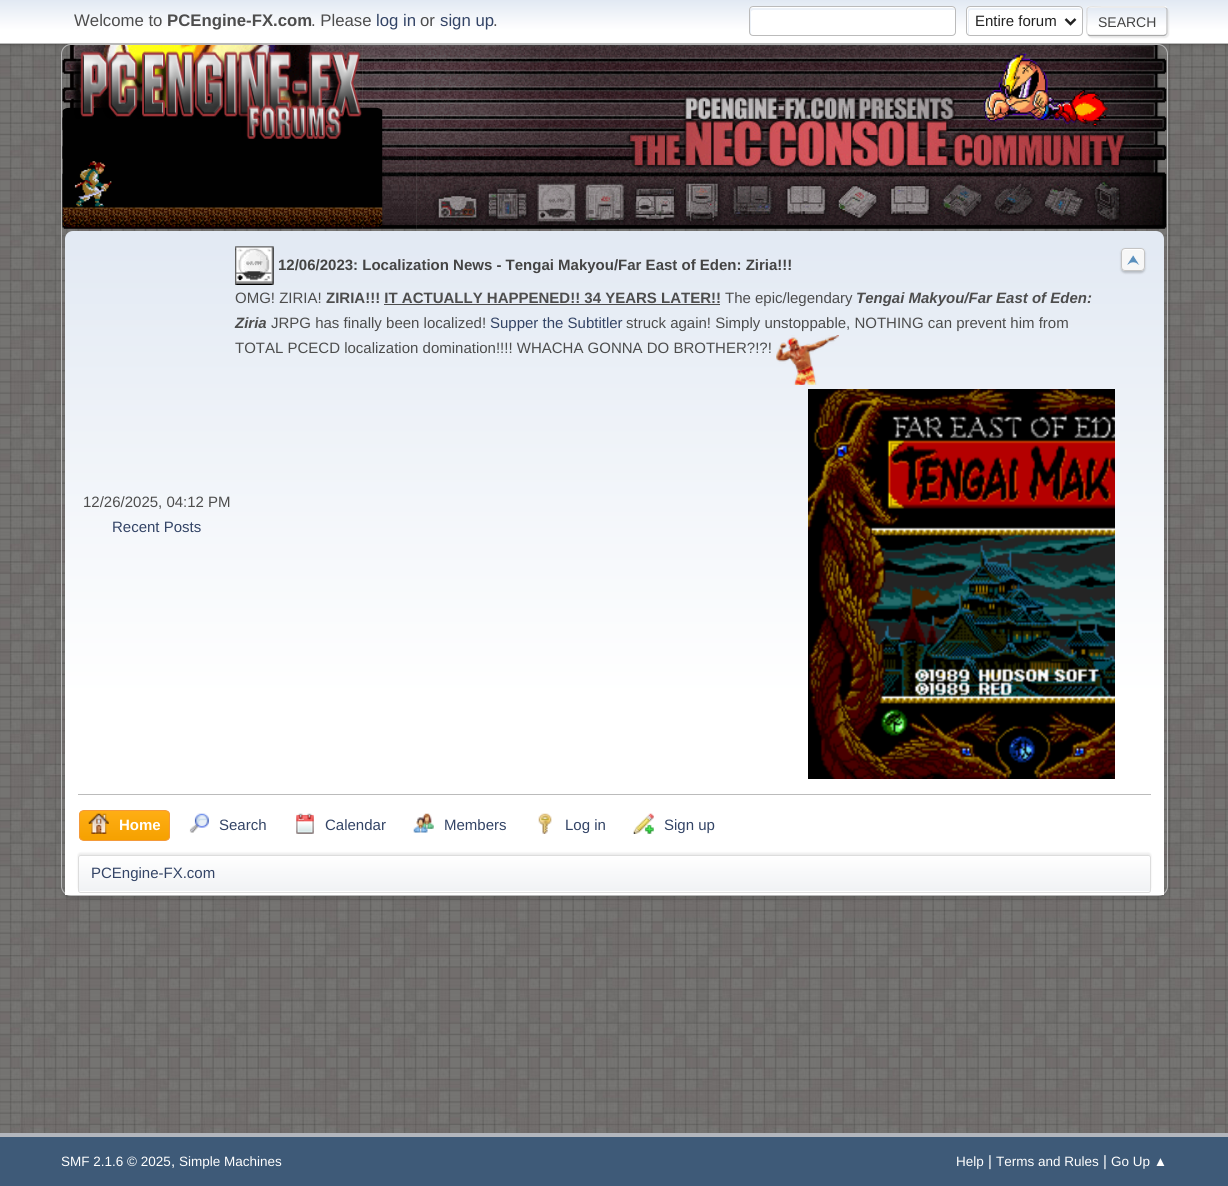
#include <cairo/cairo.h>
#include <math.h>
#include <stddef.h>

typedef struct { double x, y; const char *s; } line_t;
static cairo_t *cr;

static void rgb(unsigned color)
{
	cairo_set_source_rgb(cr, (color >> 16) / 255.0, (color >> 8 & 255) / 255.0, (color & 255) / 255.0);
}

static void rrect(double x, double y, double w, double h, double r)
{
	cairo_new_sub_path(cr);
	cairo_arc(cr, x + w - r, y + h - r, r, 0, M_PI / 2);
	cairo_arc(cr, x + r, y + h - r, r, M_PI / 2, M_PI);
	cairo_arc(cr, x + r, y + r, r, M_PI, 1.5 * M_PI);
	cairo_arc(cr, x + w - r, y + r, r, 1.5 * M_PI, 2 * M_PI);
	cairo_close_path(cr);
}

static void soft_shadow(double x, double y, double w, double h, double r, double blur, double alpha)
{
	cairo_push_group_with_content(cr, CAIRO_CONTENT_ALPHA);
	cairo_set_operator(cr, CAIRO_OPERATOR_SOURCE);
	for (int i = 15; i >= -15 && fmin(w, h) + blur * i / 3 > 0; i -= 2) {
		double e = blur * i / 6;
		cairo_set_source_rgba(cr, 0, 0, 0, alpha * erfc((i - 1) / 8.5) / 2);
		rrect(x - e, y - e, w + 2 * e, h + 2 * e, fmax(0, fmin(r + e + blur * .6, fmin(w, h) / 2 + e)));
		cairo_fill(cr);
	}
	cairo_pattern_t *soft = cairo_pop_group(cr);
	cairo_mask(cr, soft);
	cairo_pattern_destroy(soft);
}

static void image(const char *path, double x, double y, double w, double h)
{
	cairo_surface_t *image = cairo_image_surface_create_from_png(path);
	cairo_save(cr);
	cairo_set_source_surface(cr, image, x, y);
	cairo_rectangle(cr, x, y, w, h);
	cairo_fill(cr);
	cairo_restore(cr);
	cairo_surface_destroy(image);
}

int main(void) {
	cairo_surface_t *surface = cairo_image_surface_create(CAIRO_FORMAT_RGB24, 1228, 1186);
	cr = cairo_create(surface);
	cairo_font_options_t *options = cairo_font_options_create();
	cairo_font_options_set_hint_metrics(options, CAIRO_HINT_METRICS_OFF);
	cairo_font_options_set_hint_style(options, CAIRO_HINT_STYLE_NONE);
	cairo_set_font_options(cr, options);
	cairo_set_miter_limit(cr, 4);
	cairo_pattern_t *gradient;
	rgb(0xffffff);
	cairo_paint(cr);
	image("img/1.png", 0, 44, 1228, 1089);
	rgb(0x000000);
	soft_shadow(0, 1, 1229, 44, 0, 2.5, 0.16);
	gradient = cairo_pattern_create_linear(614, 0, 614, 43);
	cairo_pattern_add_color_stop_rgba(gradient, 0, 0.886, 0.914, 0.953, 1);
	cairo_pattern_add_color_stop_rgba(gradient, 0.7, 1, 1, 1, 1);
	cairo_set_source(cr, gradient);
	cairo_pattern_destroy(gradient);
	cairo_rectangle(cr, 0, 0, 1228, 43);
	cairo_fill(cr);
	rgb(0xbbbbbb);
	cairo_rectangle(cr, 0, 43, 1228, 1);
	cairo_fill(cr);
	rgb(0xffffff);
	rrect(749, 6, 207, 30, 4);
	cairo_fill(cr);
	rgb(0xecf1f8);
	cairo_new_path(cr);
	cairo_move_to(cr, 754, 10);
	cairo_line_to(cr, 955, 10);
	cairo_curve_to(cr, 955, 9, 954, 8, 952, 8);
	cairo_line_to(cr, 752, 8);
	cairo_curve_to(cr, 751, 8, 750, 9, 750, 10);
	cairo_line_to(cr, 750, 32);
	cairo_curve_to(cr, 750, 33, 750, 34, 751, 35);
	cairo_line_to(cr, 751, 12);
	cairo_curve_to(cr, 751, 11, 752, 10, 754, 10);
	cairo_close_path(cr);
	cairo_fill(cr);
	rrect(749.5, 6.5, 206, 29, 3.5);
	rgb(0xbbbbbb);
	cairo_set_line_width(cr, 1);
	cairo_stroke(cr);
	rgb(0xffffff);
	rrect(966, 6, 117, 30, 4);
	cairo_fill(cr);
	rgb(0xecf1f8);
	cairo_new_path(cr);
	cairo_move_to(cr, 971, 10);
	cairo_line_to(cr, 1081, 10);
	cairo_curve_to(cr, 1081, 9, 1080, 8, 1078, 8);
	cairo_line_to(cr, 970, 8);
	cairo_curve_to(cr, 969, 8, 968, 9, 968, 10);
	cairo_line_to(cr, 968, 32);
	cairo_curve_to(cr, 968, 33, 968, 34, 969, 35);
	cairo_line_to(cr, 969, 12);
	cairo_curve_to(cr, 969, 11, 970, 10, 971, 10);
	cairo_close_path(cr);
	cairo_fill(cr);
	rrect(966.5, 6.5, 116, 29, 3.5);
	rgb(0xbbbbbb);
	cairo_stroke(cr);
	cairo_new_path(cr);
	cairo_move_to(cr, 1065.5, 19);
	cairo_line_to(cr, 1070.5, 24);
	cairo_line_to(cr, 1075.5, 19);
	rgb(0x222222);
	cairo_set_line_width(cr, 2.5);
	cairo_stroke(cr);
	rgb(0xdddddd);
	soft_shadow(1088, 8, 81, 30, 4, 0.5, 0.57);
	cairo_save(cr);
	rrect(1086, 6, 82, 30, 4);
	cairo_clip(cr);
	gradient = cairo_pattern_create_linear(1127, -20, 1127, 7.5);
	cairo_pattern_add_color_stop_rgba(gradient, 0, 0.886, 0.914, 0.953, 1);
	cairo_pattern_add_color_stop_rgba(gradient, 0.7, 1, 1, 1, 1);
	cairo_set_source(cr, gradient);
	cairo_pattern_destroy(gradient);
	cairo_rectangle(cr, 1086, 6, 82, 2);
	cairo_fill(cr);
	gradient = cairo_pattern_create_linear(1127, 7.5, 1127, 35);
	cairo_pattern_add_color_stop_rgba(gradient, 0, 0.886, 0.914, 0.953, 1);
	cairo_pattern_add_color_stop_rgba(gradient, 0.7, 1, 1, 1, 1);
	cairo_set_source(cr, gradient);
	cairo_pattern_destroy(gradient);
	cairo_rectangle(cr, 1086, 8, 82, 27);
	cairo_fill(cr);
	gradient = cairo_pattern_create_linear(1127, 35, 1127, 63);
	cairo_pattern_add_color_stop_rgba(gradient, 0, 0.886, 0.914, 0.953, 1);
	cairo_pattern_add_color_stop_rgba(gradient, 0.7, 1, 1, 1, 1);
	cairo_set_source(cr, gradient);
	cairo_pattern_destroy(gradient);
	cairo_rectangle(cr, 1086, 35, 82, 1);
	cairo_fill(cr);
	cairo_restore(cr);
	cairo_new_path(cr);
	cairo_move_to(cr, 1166, 8);
	cairo_curve_to(cr, 1166.5, 8.5, 1167, 9, 1167, 10);
	cairo_line_to(cr, 1167, 32.5);
	cairo_curve_to(cr, 1167, 33.5, 1166.5, 34, 1166, 34.5);
	rgb(0xbbbbbb);
	cairo_set_line_width(cr, 1.2);
	cairo_stroke(cr);
	cairo_new_path(cr);
	cairo_move_to(cr, 1166, 34.5);
	cairo_line_to(cr, 1164, 35.5);
	cairo_line_to(cr, 1089.5, 35.5);
	cairo_line_to(cr, 1088, 34.5);
	rgb(0xaaaaaa);
	cairo_stroke(cr);
	cairo_new_path(cr);
	cairo_move_to(cr, 1088, 34.5);
	cairo_curve_to(cr, 1085.5, 32.5, 1087, 24, 1087, 21);
	cairo_curve_to(cr, 1087, 4, 1084.5, 7, 1102.5, 7);
	cairo_line_to(cr, 1164, 7);
	cairo_line_to(cr, 1166, 8);
	rgb(0xdddddd);
	cairo_stroke(cr);
	cairo_save(cr);
	cairo_set_fill_rule(cr, CAIRO_FILL_RULE_EVEN_ODD);
	cairo_new_path(cr);
	cairo_move_to(cr, 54, 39);
	cairo_line_to(cr, 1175, 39);
	cairo_line_to(cr, 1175, 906);
	cairo_line_to(cr, 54, 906);
	cairo_close_path(cr);
	cairo_move_to(cr, 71, 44);
	cairo_line_to(cr, 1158, 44);
	cairo_curve_to(cr, 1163.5, 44, 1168, 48.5, 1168, 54);
	cairo_line_to(cr, 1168, 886);
	cairo_curve_to(cr, 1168, 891.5, 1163.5, 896, 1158, 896);
	cairo_line_to(cr, 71, 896);
	cairo_curve_to(cr, 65.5, 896, 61, 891.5, 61, 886);
	cairo_line_to(cr, 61, 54);
	cairo_curve_to(cr, 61, 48.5, 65.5, 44, 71, 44);
	cairo_close_path(cr);
	cairo_clip(cr);
	rgb(0x000000);
	soft_shadow(61, 46, 1107, 853, 10, 2, 0.14);
	cairo_restore(cr);
	rrect(61.5, 44.5, 1106, 851, 9.5);
	rgb(0xb8b8b8);
	cairo_set_line_width(cr, 1);
	cairo_stroke(cr);
	image("img/2.png", 62, 45, 301, 184);
	image("img/4.png", 362, 45, 55, 184);
	image("img/5.png", 62, 107, 321, 121);
	image("img/3.png", 71, 51, 291, 88);
	image("img/6.png", 416, 45, 751, 184);
	gradient = cairo_pattern_create_linear(614, 231, 614, 895);
	cairo_pattern_add_color_stop_rgba(gradient, 0, 0.886, 0.914, 0.953, 1);
	cairo_pattern_add_color_stop_rgba(gradient, 0.7, 1, 1, 1, 1);
	cairo_set_source(cr, gradient);
	cairo_pattern_destroy(gradient);
	cairo_new_path(cr);
	cairo_move_to(cr, 73, 231);
	cairo_line_to(cr, 1156, 231);
	cairo_curve_to(cr, 1160.5, 231, 1164, 234.5, 1164, 239);
	cairo_line_to(cr, 1164, 895);
	cairo_line_to(cr, 65, 895);
	cairo_line_to(cr, 65, 239);
	cairo_curve_to(cr, 65, 234.5, 68.5, 231, 73, 231);
	cairo_close_path(cr);
	cairo_fill(cr);
	rgb(0xbbbbbb);
	cairo_rectangle(cr, 78, 794, 1073, 1);
	cairo_fill(cr);
	image("img/7.png", 235, 246, 39, 39);
	rgb(0x4d4d4d);
	cairo_rectangle(cr, 384, 304, 336, 1);
	cairo_fill(cr);
	image("img/8.png", 776, 335, 63, 50);
	image("img/9.png", 808, 389, 307, 390);
	rgb(0x000000);
	soft_shadow(1121, 249, 24, 24, 4, 1, 0.2);
	rgb(0xf7f7f7);
	rrect(1121, 248, 24, 23, 4);
	cairo_fill(cr);
	image("img/10.png", 1127, 255, 13, 10);
	rgb(0xffffff);
	cairo_new_path(cr);
	cairo_move_to(cr, 1125, 250);
	cairo_line_to(cr, 1139, 250);
	cairo_curve_to(cr, 1142, 250, 1143.5, 251, 1144, 252.5);
	cairo_line_to(cr, 1144, 251.5);
	cairo_curve_to(cr, 1144, 250, 1143, 249, 1141.5, 249);
	cairo_line_to(cr, 1125.5, 249);
	cairo_curve_to(cr, 1124.5, 249, 1123.5, 250, 1123, 251);
	cairo_curve_to(cr, 1123.5, 250.5, 1124, 250, 1125, 250);
	cairo_close_path(cr);
	cairo_fill(cr);
	rrect(1121.5, 248.5, 23, 22, 3.5);
	rgb(0xc5c5c5);
	cairo_stroke(cr);
	cairo_save(cr);
	rrect(79, 810, 91, 31, 5);
	cairo_clip(cr);
	gradient = cairo_pattern_create_linear(124, 811, 124, 840);
	cairo_pattern_add_color_stop_rgba(gradient, 0, 1, 0.682, 0.078, 1);
	cairo_pattern_add_color_stop_rgba(gradient, 1, 0.961, 0.631, 0, 1);
	cairo_set_source(cr, gradient);
	cairo_pattern_destroy(gradient);
	cairo_rectangle(cr, 79, 811, 91, 29);
	cairo_fill(cr);
	cairo_restore(cr);
	rrect(79.5, 810.5, 90, 30, 4.5);
	rgb(0xf49a3a);
	cairo_stroke(cr);
	image("img/11.png", 88, 813, 21, 21);
	image("img/12.png", 189, 813, 20, 20);
	image("img/13.png", 296, 813, 18, 21);
	image("img/14.png", 413, 813, 21, 20);
	image("img/15.png", 538, 813, 14, 21);
	image("img/16.png", 633, 813, 21, 21);
	rgb(0x000000);
	soft_shadow(78, 853, 1073, 37, 2.5, 1, 0.08);
	rgb(0xffffff);
	rrect(78, 855, 1073, 38, 2.5);
	cairo_fill(cr);
	gradient = cairo_pattern_create_linear(614, 856, 614, 891);
	cairo_pattern_add_color_stop_rgba(gradient, 0, 1, 1, 1, 1);
	cairo_pattern_add_color_stop_rgba(gradient, 0.95, 0.945, 0.953, 0.961, 1);
	cairo_set_source(cr, gradient);
	cairo_pattern_destroy(gradient);
	cairo_rectangle(cr, 78, 856, 1073, 35);
	cairo_fill(cr);
	rrect(78.5, 855.5, 1072, 37, 2);
	rgb(0xdddddd);
	cairo_stroke(cr);
	rgb(0x3e5a78);
	cairo_rectangle(cr, 0, 1137, 1228, 49);
	cairo_fill(cr);
	rgb(0xb2b6bd);
	cairo_rectangle(cr, 0, 1133, 1228, 4);
	cairo_fill(cr);
	cairo_select_font_face(cr, "Liberation Sans", CAIRO_FONT_SLANT_NORMAL, CAIRO_FONT_WEIGHT_NORMAL);
	cairo_set_font_size(cr, 16.75);
	rgb(0x4d4d4d);
	cairo_move_to(cr, 74, 26);
	cairo_show_text(cr, "Welcome to");
	cairo_select_font_face(cr, "Liberation Sans", CAIRO_FONT_SLANT_NORMAL, CAIRO_FONT_WEIGHT_BOLD);
	cairo_move_to(cr, 167, 26);
	cairo_show_text(cr, "PCEngine-FX.com");
	cairo_select_font_face(cr, "Liberation Sans", CAIRO_FONT_SLANT_NORMAL, CAIRO_FONT_WEIGHT_NORMAL);
	cairo_move_to(cr, 311, 26);
	cairo_show_text(cr, ". Please");
	rgb(0x334466);
	cairo_move_to(cr, 376, 26);
	cairo_show_text(cr, "log in");
	rgb(0x4d4d4d);
	cairo_move_to(cr, 420, 26);
	cairo_show_text(cr, "or");
	rgb(0x334466);
	cairo_move_to(cr, 440, 26);
	cairo_show_text(cr, "sign up");
	rgb(0x4d4d4d);
	cairo_move_to(cr, 493, 26);
	cairo_show_text(cr, ".");
	cairo_set_font_size(cr, 15);
	rgb(0x222222);
	cairo_move_to(cr, 975, 26);
	cairo_show_text(cr, "Entire forum");
	cairo_set_font_size(cr, 14);
	rgb(0x444444);
	cairo_move_to(cr, 1098, 27);
	cairo_show_text(cr, "SEARCH");
	cairo_select_font_face(cr, "Liberation Sans", CAIRO_FONT_SLANT_NORMAL, CAIRO_FONT_WEIGHT_BOLD);
	cairo_set_font_size(cr, 15);
	cairo_move_to(cr, 278, 270);
	cairo_show_text(cr, "12/06/2023: Localization News - Tengai Makyou/Far East of Eden: Ziria!!!");
	cairo_select_font_face(cr, "Liberation Sans", CAIRO_FONT_SLANT_NORMAL, CAIRO_FONT_WEIGHT_NORMAL);
	rgb(0x4d4d4d);
	cairo_move_to(cr, 235, 303);
	cairo_show_text(cr, "OMG! ZIRIA!");
	cairo_select_font_face(cr, "Liberation Sans", CAIRO_FONT_SLANT_NORMAL, CAIRO_FONT_WEIGHT_BOLD);
	cairo_move_to(cr, 326, 303);
	cairo_show_text(cr, "ZIRIA!!! IT ACTUALLY HAPPENED!! 34 YEARS LATER!!");
	cairo_select_font_face(cr, "Liberation Sans", CAIRO_FONT_SLANT_NORMAL, CAIRO_FONT_WEIGHT_NORMAL);
	cairo_move_to(cr, 725, 303);
	cairo_show_text(cr, "The epic/legendary");
	cairo_select_font_face(cr, "Liberation Sans", CAIRO_FONT_SLANT_ITALIC, CAIRO_FONT_WEIGHT_BOLD);
	cairo_move_to(cr, 856, 303);
	cairo_show_text(cr, "Tengai Makyou/Far East of Eden:");
	cairo_move_to(cr, 235, 328);
	cairo_show_text(cr, "Ziria");
	cairo_select_font_face(cr, "Liberation Sans", CAIRO_FONT_SLANT_NORMAL, CAIRO_FONT_WEIGHT_NORMAL);
	cairo_move_to(cr, 271, 328);
	cairo_show_text(cr, "JRPG has finally been localized!");
	rgb(0x334466);
	cairo_move_to(cr, 490, 328);
	cairo_show_text(cr, "Supper the Subtitler");
	rgb(0x4d4d4d);
	{
		static const line_t items[] = {
			{626, 328, "struck again! Simply unstoppable, NOTHING can prevent him from"},
			{235, 353, "TOTAL PCECD localization domination!!!! WHACHA GONNA DO BROTHER?!?!"},
			{83, 507, "12/26/2025, 04:12 PM"},
		};
		for (size_t i = 0; i < sizeof items / sizeof *items; i++) {
			cairo_move_to(cr, items[i].x, items[i].y);
			cairo_show_text(cr, items[i].s);
		}
	}
	rgb(0x334466);
	cairo_move_to(cr, 112, 532);
	cairo_show_text(cr, "Recent Posts");
	cairo_select_font_face(cr, "Liberation Sans", CAIRO_FONT_SLANT_NORMAL, CAIRO_FONT_WEIGHT_BOLD);
	rgb(0xffffff);
	cairo_move_to(cr, 119, 830);
	cairo_show_text(cr, "Home");
	cairo_select_font_face(cr, "Liberation Sans", CAIRO_FONT_SLANT_NORMAL, CAIRO_FONT_WEIGHT_NORMAL);
	rgb(0x334466);
	{
		static const line_t items[] = {
			{219, 830, "Search"},
			{325, 830, "Calendar"},
			{444, 830, "Members"},
			{565, 830, "Log in"},
			{664, 830, "Sign up"},
			{91, 878, "PCEngine-FX.com"},
		};
		for (size_t i = 0; i < sizeof items / sizeof *items; i++) {
			cairo_move_to(cr, items[i].x, items[i].y);
			cairo_show_text(cr, items[i].s);
		}
	}
	cairo_set_font_size(cr, 13.5);
	rgb(0xffffff);
	cairo_move_to(cr, 61, 1166);
	cairo_show_text(cr, "SMF 2.1.6 © 2025");
	cairo_set_font_size(cr, 15);
	cairo_move_to(cr, 171, 1166);
	cairo_show_text(cr, ",");
	cairo_set_font_size(cr, 13.5);
	cairo_move_to(cr, 179, 1166);
	cairo_show_text(cr, "Simple Machines");
	cairo_move_to(cr, 956, 1166);
	cairo_show_text(cr, "Help");
	cairo_set_font_size(cr, 15);
	cairo_move_to(cr, 988, 1166);
	cairo_show_text(cr, "|");
	cairo_set_font_size(cr, 13.5);
	cairo_move_to(cr, 996, 1166);
	cairo_show_text(cr, "Terms and Rules");
	cairo_set_font_size(cr, 15);
	cairo_move_to(cr, 1103, 1166);
	cairo_show_text(cr, "|");
	cairo_set_font_size(cr, 13.5);
	cairo_move_to(cr, 1111, 1166);
	cairo_show_text(cr, "Go Up ▲");
	cairo_surface_write_to_png(surface, "page.png");
	cairo_font_options_destroy(options);
	cairo_destroy(cr);
	cairo_surface_destroy(surface);
	return 0;
}
